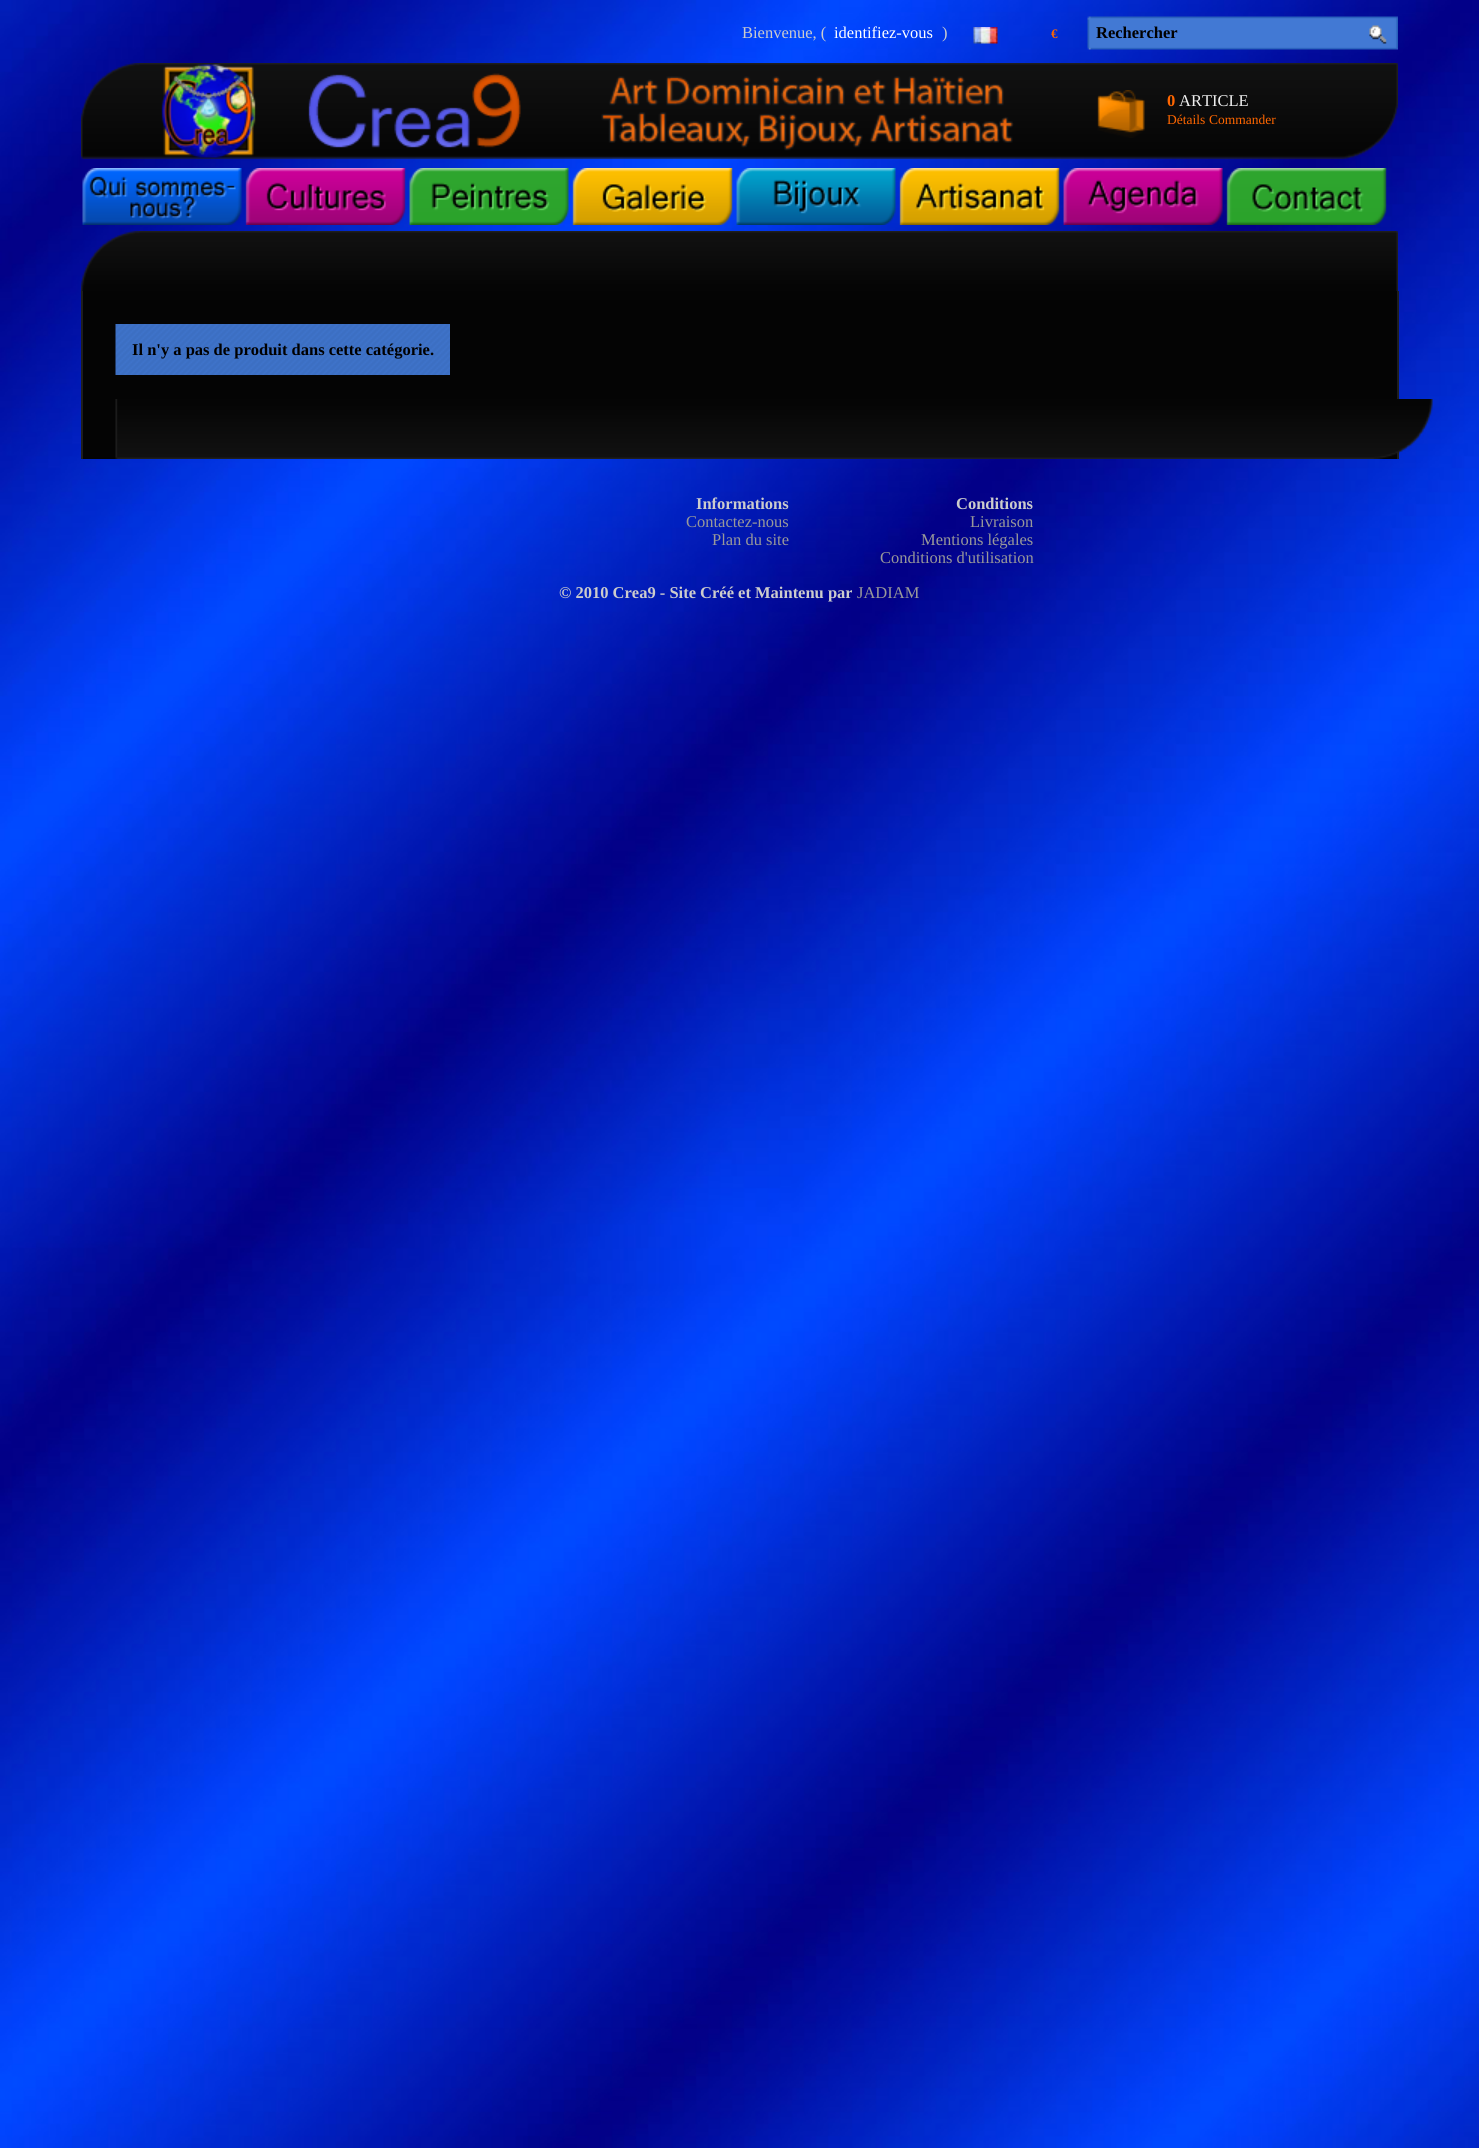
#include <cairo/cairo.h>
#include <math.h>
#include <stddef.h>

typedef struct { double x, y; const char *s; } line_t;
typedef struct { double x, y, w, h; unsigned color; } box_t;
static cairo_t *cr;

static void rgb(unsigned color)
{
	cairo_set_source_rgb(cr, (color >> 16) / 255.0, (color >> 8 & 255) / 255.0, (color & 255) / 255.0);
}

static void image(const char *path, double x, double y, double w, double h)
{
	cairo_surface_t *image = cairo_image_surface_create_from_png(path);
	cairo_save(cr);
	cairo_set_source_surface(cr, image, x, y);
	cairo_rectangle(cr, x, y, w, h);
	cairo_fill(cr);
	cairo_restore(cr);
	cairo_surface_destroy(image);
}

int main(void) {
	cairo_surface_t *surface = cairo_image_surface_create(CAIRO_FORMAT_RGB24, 1479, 2148);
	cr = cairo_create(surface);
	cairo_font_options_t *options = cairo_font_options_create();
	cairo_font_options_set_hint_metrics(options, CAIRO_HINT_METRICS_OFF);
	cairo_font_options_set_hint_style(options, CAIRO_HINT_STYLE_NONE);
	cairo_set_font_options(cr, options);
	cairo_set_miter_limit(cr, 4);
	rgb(0xffffff);
	cairo_paint(cr);
	image("img/1.png", 0, 0, 1479, 2148);
	image("img/2.png", 81, 63, 1317, 96);
	image("img/3.png", 1097, 90, 48, 48);
	image("img/4.png", 973, 27, 25, 17);
	image("img/5.png", 1087, 16, 311, 34);
	image("img/6.png", 161, 64, 360, 94);
	image("img/7.png", 82, 168, 160, 57);
	image("img/8.png", 245, 168, 161, 57);
	image("img/9.png", 409, 168, 160, 57);
	image("img/10.png", 572, 168, 161, 57);
	image("img/11.png", 736, 168, 160, 57);
	image("img/12.png", 899, 168, 161, 57);
	image("img/13.png", 1063, 168, 160, 57);
	image("img/14.png", 1226, 168, 161, 57);
	image("img/15.png", 81, 231, 1317, 60);
	{
		static const box_t items[] = {
			{83, 291, 1314, 168, 0x040404},
			{1397, 291, 2, 168, 0x1e1e1e},
			{81, 291, 2, 168, 0x1e1e1e},
		};
		for (size_t i = 0; i < sizeof items / sizeof *items; i++) {
			rgb(items[i].color);
			cairo_rectangle(cr, items[i].x, items[i].y, items[i].w, items[i].h);
			cairo_fill(cr);
		}
	}
	image("img/16.png", 115, 324, 335, 51);
	image("img/17.png", 115, 399, 1318, 60);
	cairo_select_font_face(cr, "Liberation Serif", CAIRO_FONT_SLANT_NORMAL, CAIRO_FONT_WEIGHT_NORMAL);
	cairo_set_font_size(cr, 16.5);
	rgb(0xcccccc);
	cairo_move_to(cr, 742, 38);
	cairo_show_text(cr, "Bienvenue, (");
	rgb(0xffffff);
	cairo_move_to(cr, 834, 38);
	cairo_show_text(cr, "identifiez-vous");
	rgb(0xcccccc);
	cairo_move_to(cr, 942, 38);
	cairo_show_text(cr, ")");
	cairo_select_font_face(cr, "Liberation Serif", CAIRO_FONT_SLANT_NORMAL, CAIRO_FONT_WEIGHT_BOLD);
	rgb(0xff6600);
	cairo_move_to(cr, 1167, 106);
	cairo_show_text(cr, "0");
	cairo_select_font_face(cr, "Liberation Serif", CAIRO_FONT_SLANT_NORMAL, CAIRO_FONT_WEIGHT_NORMAL);
	rgb(0xeeeeee);
	cairo_move_to(cr, 1179, 106);
	cairo_show_text(cr, "ARTICLE");
	cairo_set_font_size(cr, 13.5);
	rgb(0xff6600);
	cairo_move_to(cr, 1167, 124);
	cairo_show_text(cr, "Détails");
	cairo_move_to(cr, 1209, 124);
	cairo_show_text(cr, "Commander");
	cairo_select_font_face(cr, "Liberation Serif", CAIRO_FONT_SLANT_NORMAL, CAIRO_FONT_WEIGHT_BOLD);
	cairo_set_font_size(cr, 13);
	cairo_move_to(cr, 1051, 38);
	cairo_show_text(cr, "€");
	cairo_set_font_size(cr, 16.5);
	rgb(0x000000);
	cairo_move_to(cr, 1096, 38);
	cairo_show_text(cr, "Rechercher");
	cairo_move_to(cr, 132, 355);
	cairo_show_text(cr, "Il n'y a pas de produit dans cette catégorie.");
	rgb(0xcccccc);
	cairo_move_to(cr, 696, 509);
	cairo_show_text(cr, "Informations");
	cairo_select_font_face(cr, "Liberation Serif", CAIRO_FONT_SLANT_NORMAL, CAIRO_FONT_WEIGHT_NORMAL);
	rgb(0x999999);
	cairo_move_to(cr, 686, 527);
	cairo_show_text(cr, "Contactez-nous");
	cairo_move_to(cr, 712, 545);
	cairo_show_text(cr, "Plan du site");
	cairo_select_font_face(cr, "Liberation Serif", CAIRO_FONT_SLANT_NORMAL, CAIRO_FONT_WEIGHT_BOLD);
	rgb(0xcccccc);
	cairo_move_to(cr, 956, 509);
	cairo_show_text(cr, "Conditions");
	cairo_select_font_face(cr, "Liberation Serif", CAIRO_FONT_SLANT_NORMAL, CAIRO_FONT_WEIGHT_NORMAL);
	rgb(0x999999);
	{
		static const line_t items[] = {
			{970, 527, "Livraison"},
			{921, 545, "Mentions légales"},
			{880, 563, "Conditions d'utilisation"},
		};
		for (size_t i = 0; i < sizeof items / sizeof *items; i++) {
			cairo_move_to(cr, items[i].x, items[i].y);
			cairo_show_text(cr, items[i].s);
		}
	}
	cairo_select_font_face(cr, "Liberation Serif", CAIRO_FONT_SLANT_NORMAL, CAIRO_FONT_WEIGHT_BOLD);
	rgb(0xcccccc);
	cairo_move_to(cr, 559, 598);
	cairo_show_text(cr, "© 2010 Crea9 - Site Créé et Maintenu par");
	cairo_select_font_face(cr, "Liberation Serif", CAIRO_FONT_SLANT_NORMAL, CAIRO_FONT_WEIGHT_NORMAL);
	rgb(0x999999);
	cairo_move_to(cr, 857, 598);
	cairo_show_text(cr, "JADIAM");
	cairo_surface_write_to_png(surface, "page.png");
	cairo_font_options_destroy(options);
	cairo_destroy(cr);
	cairo_surface_destroy(surface);
	return 0;
}
